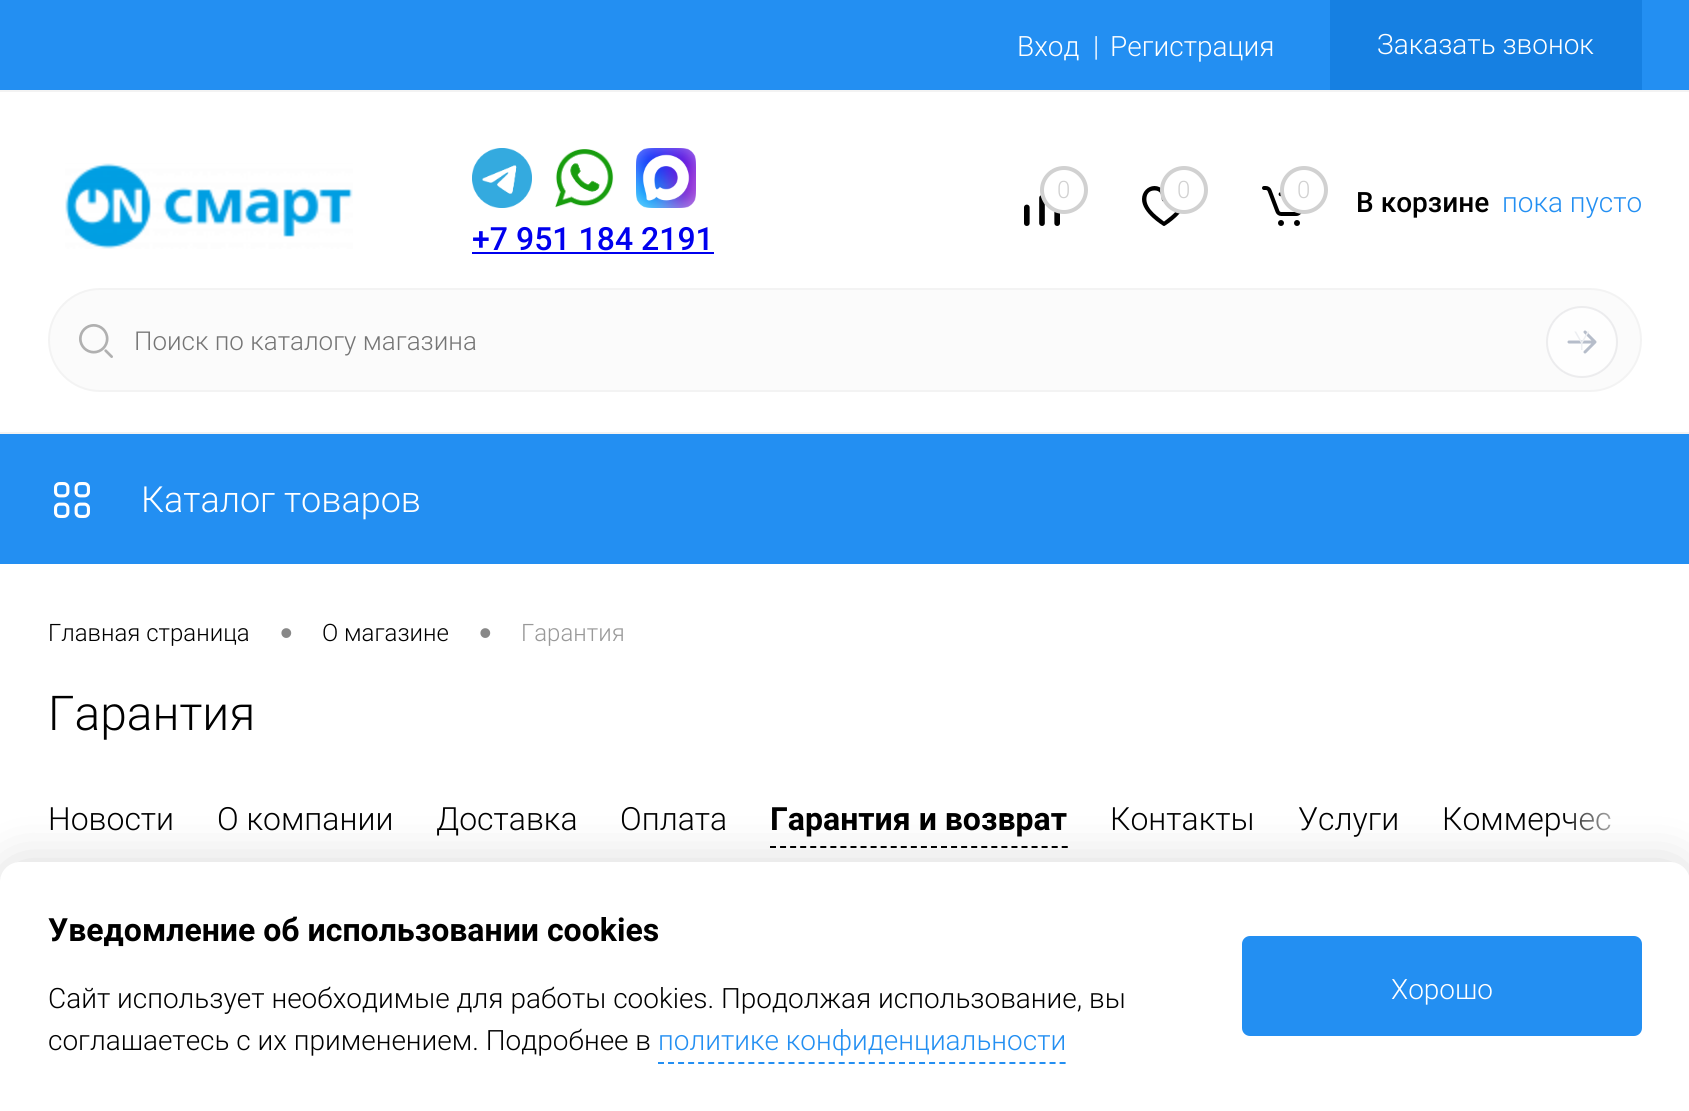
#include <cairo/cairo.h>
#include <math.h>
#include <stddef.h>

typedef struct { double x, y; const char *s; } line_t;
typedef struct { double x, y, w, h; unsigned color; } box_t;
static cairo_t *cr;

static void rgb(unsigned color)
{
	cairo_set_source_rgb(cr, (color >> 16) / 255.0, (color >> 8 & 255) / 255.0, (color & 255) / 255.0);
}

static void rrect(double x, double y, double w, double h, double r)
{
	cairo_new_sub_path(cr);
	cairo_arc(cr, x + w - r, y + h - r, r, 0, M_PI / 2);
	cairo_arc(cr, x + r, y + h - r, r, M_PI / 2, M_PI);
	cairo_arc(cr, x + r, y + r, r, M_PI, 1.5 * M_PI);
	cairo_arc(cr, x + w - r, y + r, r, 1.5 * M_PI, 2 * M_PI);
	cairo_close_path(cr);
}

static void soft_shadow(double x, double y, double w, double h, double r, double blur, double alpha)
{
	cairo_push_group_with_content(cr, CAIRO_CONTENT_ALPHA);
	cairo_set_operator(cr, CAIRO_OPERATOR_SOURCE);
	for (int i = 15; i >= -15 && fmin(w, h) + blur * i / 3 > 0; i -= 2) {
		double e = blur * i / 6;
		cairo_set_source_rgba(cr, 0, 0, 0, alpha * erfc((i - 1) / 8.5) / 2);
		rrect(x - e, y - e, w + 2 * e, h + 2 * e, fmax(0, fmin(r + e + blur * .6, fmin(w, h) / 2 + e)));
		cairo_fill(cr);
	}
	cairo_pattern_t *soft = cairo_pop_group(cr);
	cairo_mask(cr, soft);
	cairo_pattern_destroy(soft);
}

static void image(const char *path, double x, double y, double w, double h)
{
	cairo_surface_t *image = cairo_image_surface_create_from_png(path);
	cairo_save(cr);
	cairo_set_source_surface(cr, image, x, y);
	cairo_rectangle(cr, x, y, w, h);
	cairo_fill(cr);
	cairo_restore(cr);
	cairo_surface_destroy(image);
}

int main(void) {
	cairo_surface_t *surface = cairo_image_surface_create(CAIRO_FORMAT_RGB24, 1689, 1111);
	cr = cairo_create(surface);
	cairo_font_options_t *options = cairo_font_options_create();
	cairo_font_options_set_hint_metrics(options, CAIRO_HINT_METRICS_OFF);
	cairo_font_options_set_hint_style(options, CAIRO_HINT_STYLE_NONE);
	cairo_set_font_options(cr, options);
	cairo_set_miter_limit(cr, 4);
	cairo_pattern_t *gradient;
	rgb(0xffffff);
	cairo_paint(cr);
	{
		static const box_t items[] = {
			{0, 0, 1689, 90, 0x238ff2},
			{1330, 0, 312, 90, 0x1680e2},
			{0, 90, 1689, 2, 0xf3f3f3},
			{0, 432, 1689, 2, 0xf3f3f3},
		};
		for (size_t i = 0; i < sizeof items / sizeof *items; i++) {
			rgb(items[i].color);
			cairo_rectangle(cr, items[i].x, items[i].y, items[i].w, items[i].h);
			cairo_fill(cr);
		}
	}
	image("img/1.png", 65, 163, 288, 86);
	image("img/2.png", 1024, 195, 36, 31);
	rgb(0xffffff);
	cairo_arc(cr, 1064, 190, 22, 0, 2 * M_PI);
	cairo_fill_preserve(cr);
	rgb(0xd1d1d1);
	cairo_set_line_width(cr, 4);
	cairo_stroke(cr);
	image("img/3.png", 1142, 186, 38, 40);
	rgb(0xffffff);
	cairo_arc(cr, 1184, 190, 22, 0, 2 * M_PI);
	cairo_fill_preserve(cr);
	rgb(0xd1d1d1);
	cairo_stroke(cr);
	image("img/4.png", 1262, 186, 40, 40);
	rgb(0xffffff);
	cairo_arc(cr, 1304, 190, 22, 0, 2 * M_PI);
	cairo_fill_preserve(cr);
	rgb(0xd1d1d1);
	cairo_stroke(cr);
	image("img/5.png", 472, 148, 60, 60);
	image("img/6.png", 555, 149, 59, 59);
	image("img/7.png", 636, 148, 60, 60);
	rgb(0x0000ee);
	cairo_rectangle(cr, 472, 252, 242, 2);
	cairo_fill(cr);
	rgb(0xfbfbfb);
	rrect(49, 289, 1592, 102, 51);
	cairo_fill_preserve(cr);
	rgb(0xf3f3f3);
	cairo_set_line_width(cr, 2);
	cairo_stroke(cr);
	image("img/8.png", 79, 324, 34, 34);
	image("img/9.png", 1546, 306, 72, 72);
	rgb(0x238ff2);
	cairo_rectangle(cr, 0, 434, 1689, 130);
	cairo_fill(cr);
	image("img/10.png", 54, 482, 36, 36);
	cairo_new_path(cr);
	cairo_move_to(cr, 770, 847);
	cairo_line_to(cr, 1068, 847);
	rgb(0x000000);
	cairo_set_dash(cr, (double[]){6, 4.06}, 2, 0);
	cairo_stroke(cr);
	cairo_select_font_face(cr, "Roboto Light", CAIRO_FONT_SLANT_NORMAL, CAIRO_FONT_WEIGHT_NORMAL);
	cairo_set_font_size(cr, 28);
	rgb(0xffffff);
	{
		static const line_t items[] = {
			{1017, 56, "Вход"},
			{1093, 56, "|"},
			{1110, 56, "Регистрация"},
			{1377, 54, "Заказать звонок"},
		};
		for (size_t i = 0; i < sizeof items / sizeof *items; i++) {
			cairo_move_to(cr, items[i].x, items[i].y);
			cairo_show_text(cr, items[i].s);
		}
	}
	cairo_set_font_size(cr, 24);
	rgb(0xd1d1d1);
	{
		static const line_t items[] = {
			{1057, 198, "0"},
			{1177, 198, "0"},
			{1297, 198, "0"},
		};
		for (size_t i = 0; i < sizeof items / sizeof *items; i++) {
			cairo_move_to(cr, items[i].x, items[i].y);
			cairo_show_text(cr, items[i].s);
		}
	}
	cairo_select_font_face(cr, "Roboto Medium", CAIRO_FONT_SLANT_NORMAL, CAIRO_FONT_WEIGHT_NORMAL);
	cairo_set_font_size(cr, 28);
	rgb(0x000000);
	cairo_move_to(cr, 1356, 212);
	cairo_show_text(cr, "В корзине");
	cairo_select_font_face(cr, "Roboto Light", CAIRO_FONT_SLANT_NORMAL, CAIRO_FONT_WEIGHT_NORMAL);
	rgb(0x238ff2);
	cairo_move_to(cr, 1502, 212);
	cairo_show_text(cr, "пока пусто");
	cairo_select_font_face(cr, "Roboto Medium", CAIRO_FONT_SLANT_NORMAL, CAIRO_FONT_WEIGHT_NORMAL);
	cairo_set_font_size(cr, 32);
	rgb(0x0000ee);
	cairo_move_to(cr, 472, 250);
	cairo_show_text(cr, "+7 951 184 2191");
	cairo_select_font_face(cr, "Roboto Light", CAIRO_FONT_SLANT_NORMAL, CAIRO_FONT_WEIGHT_NORMAL);
	cairo_set_font_size(cr, 26);
	rgb(0x757575);
	cairo_move_to(cr, 134, 350);
	cairo_show_text(cr, "Поиск по каталогу магазина");
	rgb(0xeceef1);
	cairo_move_to(cr, 1574, 350);
	cairo_show_text(cr, "Y");
	cairo_set_font_size(cr, 36);
	rgb(0xffffff);
	cairo_move_to(cr, 141, 512);
	cairo_show_text(cr, "Каталог товаров");
	cairo_set_font_size(cr, 24);
	rgb(0x000000);
	cairo_move_to(cr, 48, 641);
	cairo_show_text(cr, "Главная страница");
	cairo_select_font_face(cr, "Liberation Sans", CAIRO_FONT_SLANT_NORMAL, CAIRO_FONT_WEIGHT_NORMAL);
	cairo_set_font_size(cr, 36);
	rgb(0x888888);
	cairo_move_to(cr, 280, 645);
	cairo_show_text(cr, "•");
	cairo_select_font_face(cr, "Roboto Light", CAIRO_FONT_SLANT_NORMAL, CAIRO_FONT_WEIGHT_NORMAL);
	cairo_set_font_size(cr, 24);
	rgb(0x000000);
	cairo_move_to(cr, 322, 641);
	cairo_show_text(cr, "О магазине");
	cairo_select_font_face(cr, "Liberation Sans", CAIRO_FONT_SLANT_NORMAL, CAIRO_FONT_WEIGHT_NORMAL);
	cairo_set_font_size(cr, 36);
	rgb(0x888888);
	cairo_move_to(cr, 479, 645);
	cairo_show_text(cr, "•");
	cairo_select_font_face(cr, "Roboto Light", CAIRO_FONT_SLANT_NORMAL, CAIRO_FONT_WEIGHT_NORMAL);
	cairo_set_font_size(cr, 24);
	rgb(0x999999);
	cairo_move_to(cr, 521, 641);
	cairo_show_text(cr, "Гарантия");
	cairo_set_font_size(cr, 48);
	rgb(0x000000);
	cairo_move_to(cr, 48, 730);
	cairo_show_text(cr, "Гарантия");
	cairo_set_font_size(cr, 32);
	{
		static const line_t items[] = {
			{48, 830, "Новости"},
			{217, 830, "О компании"},
			{436, 830, "Доставка"},
			{620, 830, "Оплата"},
		};
		for (size_t i = 0; i < sizeof items / sizeof *items; i++) {
			cairo_move_to(cr, items[i].x, items[i].y);
			cairo_show_text(cr, items[i].s);
		}
	}
	cairo_select_font_face(cr, "Roboto", CAIRO_FONT_SLANT_NORMAL, CAIRO_FONT_WEIGHT_BOLD);
	cairo_move_to(cr, 770, 830);
	cairo_show_text(cr, "Гарантия и возврат");
	cairo_select_font_face(cr, "Roboto Light", CAIRO_FONT_SLANT_NORMAL, CAIRO_FONT_WEIGHT_NORMAL);
	{
		static const line_t items[] = {
			{1110, 830, "Контакты"},
			{1298, 830, "Услуги"},
			{1442, 830, "Коммерчес"},
		};
		for (size_t i = 0; i < sizeof items / sizeof *items; i++) {
			cairo_move_to(cr, items[i].x, items[i].y);
			cairo_show_text(cr, items[i].s);
		}
	}
	gradient = cairo_pattern_create_linear(1572, 838, 1642, 838);
	cairo_pattern_add_color_stop_rgba(gradient, 0, 1, 1, 1, 0.2);
	cairo_pattern_add_color_stop_rgba(gradient, 1, 1, 1, 1, 1);
	cairo_set_source(cr, gradient);
	cairo_pattern_destroy(gradient);
	cairo_rectangle(cr, 1572, 812, 38, 19);
	cairo_fill(cr);
	rgb(0x000000);
	soft_shadow(0, 862, 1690, 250, 20, 25, 0.15);
	rgb(0xffffff);
	cairo_new_path(cr);
	cairo_move_to(cr, 20, 862);
	cairo_line_to(cr, 1670, 862);
	cairo_curve_to(cr, 1681, 862, 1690, 871, 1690, 882);
	cairo_line_to(cr, 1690, 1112);
	cairo_line_to(cr, 0, 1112);
	cairo_line_to(cr, 0, 882);
	cairo_curve_to(cr, 0, 871, 9, 862, 20, 862);
	cairo_close_path(cr);
	cairo_fill(cr);
	cairo_select_font_face(cr, "Roboto", CAIRO_FONT_SLANT_NORMAL, CAIRO_FONT_WEIGHT_BOLD);
	rgb(0x000000);
	cairo_move_to(cr, 48, 941);
	cairo_show_text(cr, "Уведомление об использовании cookies");
	cairo_select_font_face(cr, "Roboto Light", CAIRO_FONT_SLANT_NORMAL, CAIRO_FONT_WEIGHT_NORMAL);
	cairo_set_font_size(cr, 28);
	cairo_move_to(cr, 48, 1008);
	cairo_show_text(cr, "Сайт использует необходимые для работы cookies. Продолжая использование, вы");
	cairo_move_to(cr, 48, 1050);
	cairo_show_text(cr, "соглашаетесь с их применением. Подробнее в");
	cairo_new_path(cr);
	cairo_move_to(cr, 658, 1063);
	cairo_line_to(cr, 1066, 1063);
	rgb(0x238ff2);
	cairo_set_dash(cr, (double[]){6, 4.04}, 2, 0);
	cairo_stroke(cr);
	cairo_move_to(cr, 658, 1050);
	cairo_show_text(cr, "политике конфиденциальности");
	rrect(1242, 936, 400, 100, 8);
	cairo_fill(cr);
	rgb(0xffffff);
	cairo_move_to(cr, 1391, 999);
	cairo_show_text(cr, "Хорошо");
	cairo_surface_write_to_png(surface, "page.png");
	cairo_font_options_destroy(options);
	cairo_destroy(cr);
	cairo_surface_destroy(surface);
	return 0;
}
